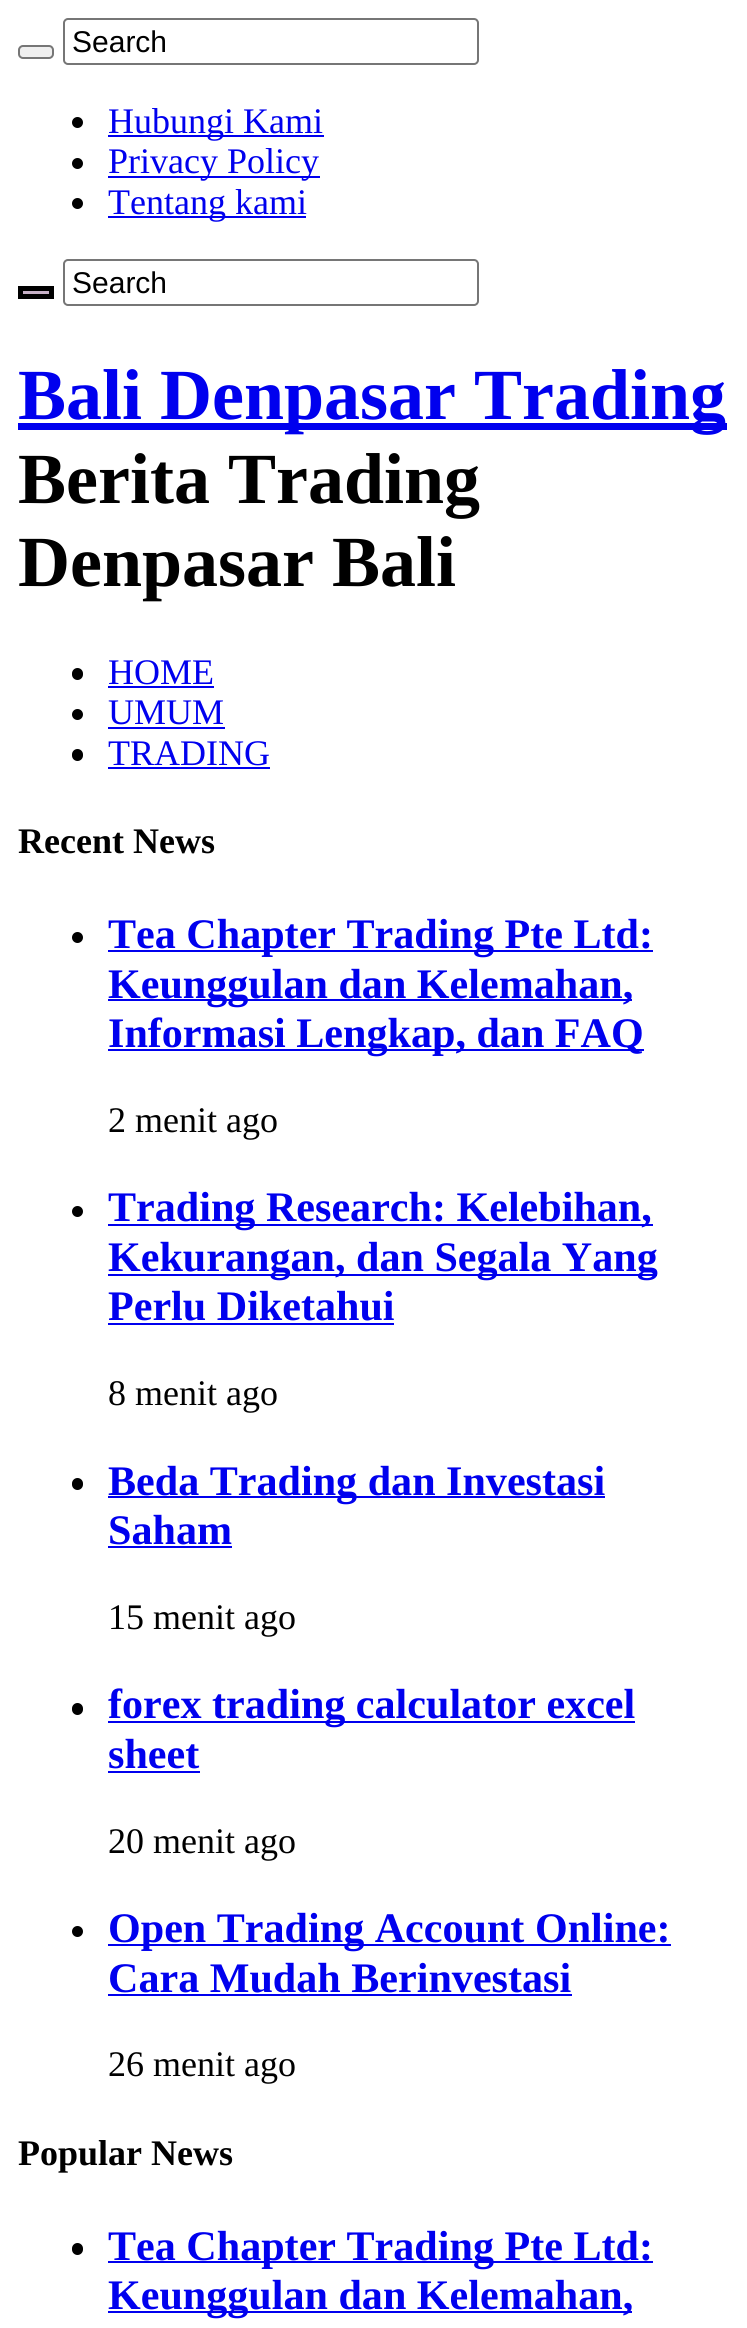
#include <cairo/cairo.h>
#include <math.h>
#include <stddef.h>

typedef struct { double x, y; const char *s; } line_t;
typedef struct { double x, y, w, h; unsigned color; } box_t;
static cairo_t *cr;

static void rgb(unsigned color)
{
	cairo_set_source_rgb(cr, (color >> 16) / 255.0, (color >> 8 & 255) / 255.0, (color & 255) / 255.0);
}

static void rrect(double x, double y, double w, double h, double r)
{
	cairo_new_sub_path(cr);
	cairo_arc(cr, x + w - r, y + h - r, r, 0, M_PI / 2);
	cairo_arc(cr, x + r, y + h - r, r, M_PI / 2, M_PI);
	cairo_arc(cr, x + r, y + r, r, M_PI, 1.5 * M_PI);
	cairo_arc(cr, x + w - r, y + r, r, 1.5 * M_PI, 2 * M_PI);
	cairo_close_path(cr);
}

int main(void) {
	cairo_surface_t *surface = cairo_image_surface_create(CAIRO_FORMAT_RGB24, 747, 2328);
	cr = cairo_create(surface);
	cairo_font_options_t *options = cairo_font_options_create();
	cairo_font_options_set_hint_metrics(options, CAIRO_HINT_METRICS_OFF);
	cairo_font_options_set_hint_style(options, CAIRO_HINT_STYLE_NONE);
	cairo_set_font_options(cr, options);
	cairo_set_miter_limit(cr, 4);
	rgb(0xffffff);
	cairo_paint(cr);
	rgb(0xefefef);
	rrect(19, 46, 34, 12, 4);
	cairo_fill_preserve(cr);
	rgb(0x767676);
	cairo_stroke(cr);
	rrect(64, 19, 414, 45, 4);
	cairo_stroke(cr);
	rgb(0x000000);
	cairo_arc(cr, 77.5, 122.5, 5.5, 0, 2 * M_PI);
	cairo_fill(cr);
	rgb(0x0000ee);
	cairo_rectangle(cr, 108, 135, 216, 2);
	cairo_fill(cr);
	rgb(0x000000);
	cairo_arc(cr, 77.5, 163.5, 5.5, 0, 2 * M_PI);
	cairo_fill(cr);
	rgb(0x0000ee);
	cairo_rectangle(cr, 108, 176, 212, 2);
	cairo_fill(cr);
	rgb(0x000000);
	cairo_arc(cr, 77.5, 203.5, 5.5, 0, 2 * M_PI);
	cairo_fill(cr);
	rgb(0x0000ee);
	cairo_rectangle(cr, 108, 216, 198, 2);
	cairo_fill(cr);
	rgb(0xc7b1c7);
	cairo_rectangle(cr, 20.5, 288.5, 31, 8);
	cairo_fill_preserve(cr);
	rgb(0x000000);
	cairo_set_line_width(cr, 5);
	cairo_stroke(cr);
	rrect(64, 260, 414, 45, 4);
	rgb(0x767676);
	cairo_set_line_width(cr, 2);
	cairo_stroke(cr);
	rgb(0x0000ee);
	cairo_rectangle(cr, 18, 423, 709, 7);
	cairo_fill(cr);
	rgb(0x000000);
	rrect(72, 668, 11, 12, 5.5);
	cairo_fill(cr);
	rgb(0x0000ee);
	cairo_rectangle(cr, 108, 686, 106, 2);
	cairo_fill(cr);
	rgb(0x000000);
	cairo_arc(cr, 77.5, 714.5, 5.5, 0, 2 * M_PI);
	cairo_fill(cr);
	rgb(0x0000ee);
	cairo_rectangle(cr, 108, 727, 117, 2);
	cairo_fill(cr);
	rgb(0x000000);
	rrect(72, 749, 11, 12, 5.5);
	cairo_fill(cr);
	rgb(0x0000ee);
	cairo_rectangle(cr, 108, 767, 162, 2);
	cairo_fill(cr);
	rgb(0x000000);
	cairo_arc(cr, 77.5, 937.5, 5.5, 0, 2 * M_PI);
	cairo_fill(cr);
	{
		static const box_t items[] = {
			{108, 950, 545, 2, 0x0000ee},
			{108, 999, 524, 2, 0x0000ee},
			{108, 1049, 536, 2, 0x0000ee},
		};
		for (size_t i = 0; i < sizeof items / sizeof *items; i++) {
			rgb(items[i].color);
			cairo_rectangle(cr, items[i].x, items[i].y, items[i].w, items[i].h);
			cairo_fill(cr);
		}
	}
	rgb(0x000000);
	cairo_arc(cr, 77.5, 1211.5, 5.5, 0, 2 * M_PI);
	cairo_fill(cr);
	{
		static const box_t items[] = {
			{108, 1224, 545, 2, 0x0000ee},
			{108, 1274, 549, 2, 0x0000ee},
			{108, 1323, 286, 2, 0x0000ee},
		};
		for (size_t i = 0; i < sizeof items / sizeof *items; i++) {
			rgb(items[i].color);
			cairo_rectangle(cr, items[i].x, items[i].y, items[i].w, items[i].h);
			cairo_fill(cr);
		}
	}
	rgb(0x000000);
	rrect(72, 1478, 11, 12, 5.5);
	cairo_fill(cr);
	rgb(0x0000ee);
	cairo_rectangle(cr, 108, 1496, 497, 2);
	cairo_fill(cr);
	cairo_rectangle(cr, 108, 1546, 124, 2);
	cairo_fill(cr);
	rgb(0x000000);
	rrect(72, 1703, 11, 12, 5.5);
	cairo_fill(cr);
	rgb(0x0000ee);
	cairo_rectangle(cr, 108, 1721, 527, 2);
	cairo_fill(cr);
	cairo_rectangle(cr, 108, 1771, 92, 2);
	cairo_fill(cr);
	rgb(0x000000);
	cairo_arc(cr, 77.5, 1931.5, 5.5, 0, 2 * M_PI);
	cairo_fill(cr);
	rgb(0x0000ee);
	cairo_rectangle(cr, 108, 1944, 563, 2);
	cairo_fill(cr);
	cairo_rectangle(cr, 108, 1994, 464, 2);
	cairo_fill(cr);
	rgb(0x000000);
	rrect(72, 2243, 11, 12, 5.5);
	cairo_fill(cr);
	rgb(0x0000ee);
	cairo_rectangle(cr, 108, 2261, 545, 2);
	cairo_fill(cr);
	cairo_rectangle(cr, 108, 2311, 524, 2);
	cairo_fill(cr);
	cairo_select_font_face(cr, "Liberation Sans", CAIRO_FONT_SLANT_NORMAL, CAIRO_FONT_WEIGHT_NORMAL);
	cairo_set_font_size(cr, 30);
	rgb(0x000000);
	cairo_move_to(cr, 72, 52);
	cairo_show_text(cr, "Search");
	cairo_select_font_face(cr, "Liberation Serif", CAIRO_FONT_SLANT_NORMAL, CAIRO_FONT_WEIGHT_NORMAL);
	cairo_set_font_size(cr, 36);
	rgb(0x0000ee);
	{
		static const line_t items[] = {
			{108, 133, "Hubungi Kami"},
			{108, 173, "Privacy Policy"},
			{108, 214, "Tentang kami"},
		};
		for (size_t i = 0; i < sizeof items / sizeof *items; i++) {
			cairo_move_to(cr, items[i].x, items[i].y);
			cairo_show_text(cr, items[i].s);
		}
	}
	cairo_select_font_face(cr, "Liberation Sans", CAIRO_FONT_SLANT_NORMAL, CAIRO_FONT_WEIGHT_NORMAL);
	cairo_set_font_size(cr, 30);
	rgb(0x000000);
	cairo_move_to(cr, 72, 293);
	cairo_show_text(cr, "Search");
	cairo_select_font_face(cr, "Liberation Serif", CAIRO_FONT_SLANT_NORMAL, CAIRO_FONT_WEIGHT_BOLD);
	cairo_set_font_size(cr, 72);
	rgb(0x0000ee);
	cairo_move_to(cr, 18, 419);
	cairo_show_text(cr, "Bali Denpasar Trading");
	rgb(0x000000);
	cairo_move_to(cr, 18, 503);
	cairo_show_text(cr, "Berita Trading");
	cairo_move_to(cr, 18, 586);
	cairo_show_text(cr, "Denpasar Bali");
	cairo_select_font_face(cr, "Liberation Serif", CAIRO_FONT_SLANT_NORMAL, CAIRO_FONT_WEIGHT_NORMAL);
	cairo_set_font_size(cr, 36);
	rgb(0x0000ee);
	{
		static const line_t items[] = {
			{108, 684, "HOME"},
			{108, 724, "UMUM"},
			{108, 765, "TRADING"},
		};
		for (size_t i = 0; i < sizeof items / sizeof *items; i++) {
			cairo_move_to(cr, items[i].x, items[i].y);
			cairo_show_text(cr, items[i].s);
		}
	}
	cairo_select_font_face(cr, "Liberation Serif", CAIRO_FONT_SLANT_NORMAL, CAIRO_FONT_WEIGHT_BOLD);
	rgb(0x000000);
	cairo_move_to(cr, 18, 853);
	cairo_show_text(cr, "Recent News");
	cairo_set_font_size(cr, 42.1);
	rgb(0x0000ee);
	{
		static const line_t items[] = {
			{108, 948, "Tea Chapter Trading Pte Ltd:"},
			{108, 998, "Keunggulan dan Kelemahan,"},
			{108, 1047, "Informasi Lengkap, dan FAQ"},
		};
		for (size_t i = 0; i < sizeof items / sizeof *items; i++) {
			cairo_move_to(cr, items[i].x, items[i].y);
			cairo_show_text(cr, items[i].s);
		}
	}
	cairo_select_font_face(cr, "Liberation Serif", CAIRO_FONT_SLANT_NORMAL, CAIRO_FONT_WEIGHT_NORMAL);
	cairo_set_font_size(cr, 36);
	rgb(0x000000);
	cairo_move_to(cr, 108, 1132);
	cairo_show_text(cr, "2 menit ago");
	cairo_select_font_face(cr, "Liberation Serif", CAIRO_FONT_SLANT_NORMAL, CAIRO_FONT_WEIGHT_BOLD);
	cairo_set_font_size(cr, 42.1);
	rgb(0x0000ee);
	{
		static const line_t items[] = {
			{108, 1221, "Trading Research: Kelebihan,"},
			{108, 1271, "Kekurangan, dan Segala Yang"},
			{108, 1320, "Perlu Diketahui"},
		};
		for (size_t i = 0; i < sizeof items / sizeof *items; i++) {
			cairo_move_to(cr, items[i].x, items[i].y);
			cairo_show_text(cr, items[i].s);
		}
	}
	cairo_select_font_face(cr, "Liberation Serif", CAIRO_FONT_SLANT_NORMAL, CAIRO_FONT_WEIGHT_NORMAL);
	cairo_set_font_size(cr, 36);
	rgb(0x000000);
	cairo_move_to(cr, 108, 1405);
	cairo_show_text(cr, "8 menit ago");
	cairo_select_font_face(cr, "Liberation Serif", CAIRO_FONT_SLANT_NORMAL, CAIRO_FONT_WEIGHT_BOLD);
	cairo_set_font_size(cr, 42.1);
	rgb(0x0000ee);
	cairo_move_to(cr, 108, 1495);
	cairo_show_text(cr, "Beda Trading dan Investasi");
	cairo_move_to(cr, 108, 1544);
	cairo_show_text(cr, "Saham");
	cairo_select_font_face(cr, "Liberation Serif", CAIRO_FONT_SLANT_NORMAL, CAIRO_FONT_WEIGHT_NORMAL);
	cairo_set_font_size(cr, 36);
	rgb(0x000000);
	cairo_move_to(cr, 108, 1629);
	cairo_show_text(cr, "15 menit ago");
	cairo_select_font_face(cr, "Liberation Serif", CAIRO_FONT_SLANT_NORMAL, CAIRO_FONT_WEIGHT_BOLD);
	cairo_set_font_size(cr, 42.1);
	rgb(0x0000ee);
	cairo_move_to(cr, 108, 1718);
	cairo_show_text(cr, "forex trading calculator excel");
	cairo_move_to(cr, 108, 1768);
	cairo_show_text(cr, "sheet");
	cairo_select_font_face(cr, "Liberation Serif", CAIRO_FONT_SLANT_NORMAL, CAIRO_FONT_WEIGHT_NORMAL);
	cairo_set_font_size(cr, 36);
	rgb(0x000000);
	cairo_move_to(cr, 108, 1853);
	cairo_show_text(cr, "20 menit ago");
	cairo_select_font_face(cr, "Liberation Serif", CAIRO_FONT_SLANT_NORMAL, CAIRO_FONT_WEIGHT_BOLD);
	cairo_set_font_size(cr, 42.1);
	rgb(0x0000ee);
	cairo_move_to(cr, 108, 1942);
	cairo_show_text(cr, "Open Trading Account Online:");
	cairo_move_to(cr, 108, 1992);
	cairo_show_text(cr, "Cara Mudah Berinvestasi");
	cairo_select_font_face(cr, "Liberation Serif", CAIRO_FONT_SLANT_NORMAL, CAIRO_FONT_WEIGHT_NORMAL);
	cairo_set_font_size(cr, 36);
	rgb(0x000000);
	cairo_move_to(cr, 108, 2076);
	cairo_show_text(cr, "26 menit ago");
	cairo_select_font_face(cr, "Liberation Serif", CAIRO_FONT_SLANT_NORMAL, CAIRO_FONT_WEIGHT_BOLD);
	cairo_move_to(cr, 18, 2165);
	cairo_show_text(cr, "Popular News");
	cairo_set_font_size(cr, 42.1);
	rgb(0x0000ee);
	cairo_move_to(cr, 108, 2260);
	cairo_show_text(cr, "Tea Chapter Trading Pte Ltd:");
	cairo_move_to(cr, 108, 2309);
	cairo_show_text(cr, "Keunggulan dan Kelemahan,");
	cairo_surface_write_to_png(surface, "page.png");
	cairo_font_options_destroy(options);
	cairo_destroy(cr);
	cairo_surface_destroy(surface);
	return 0;
}
